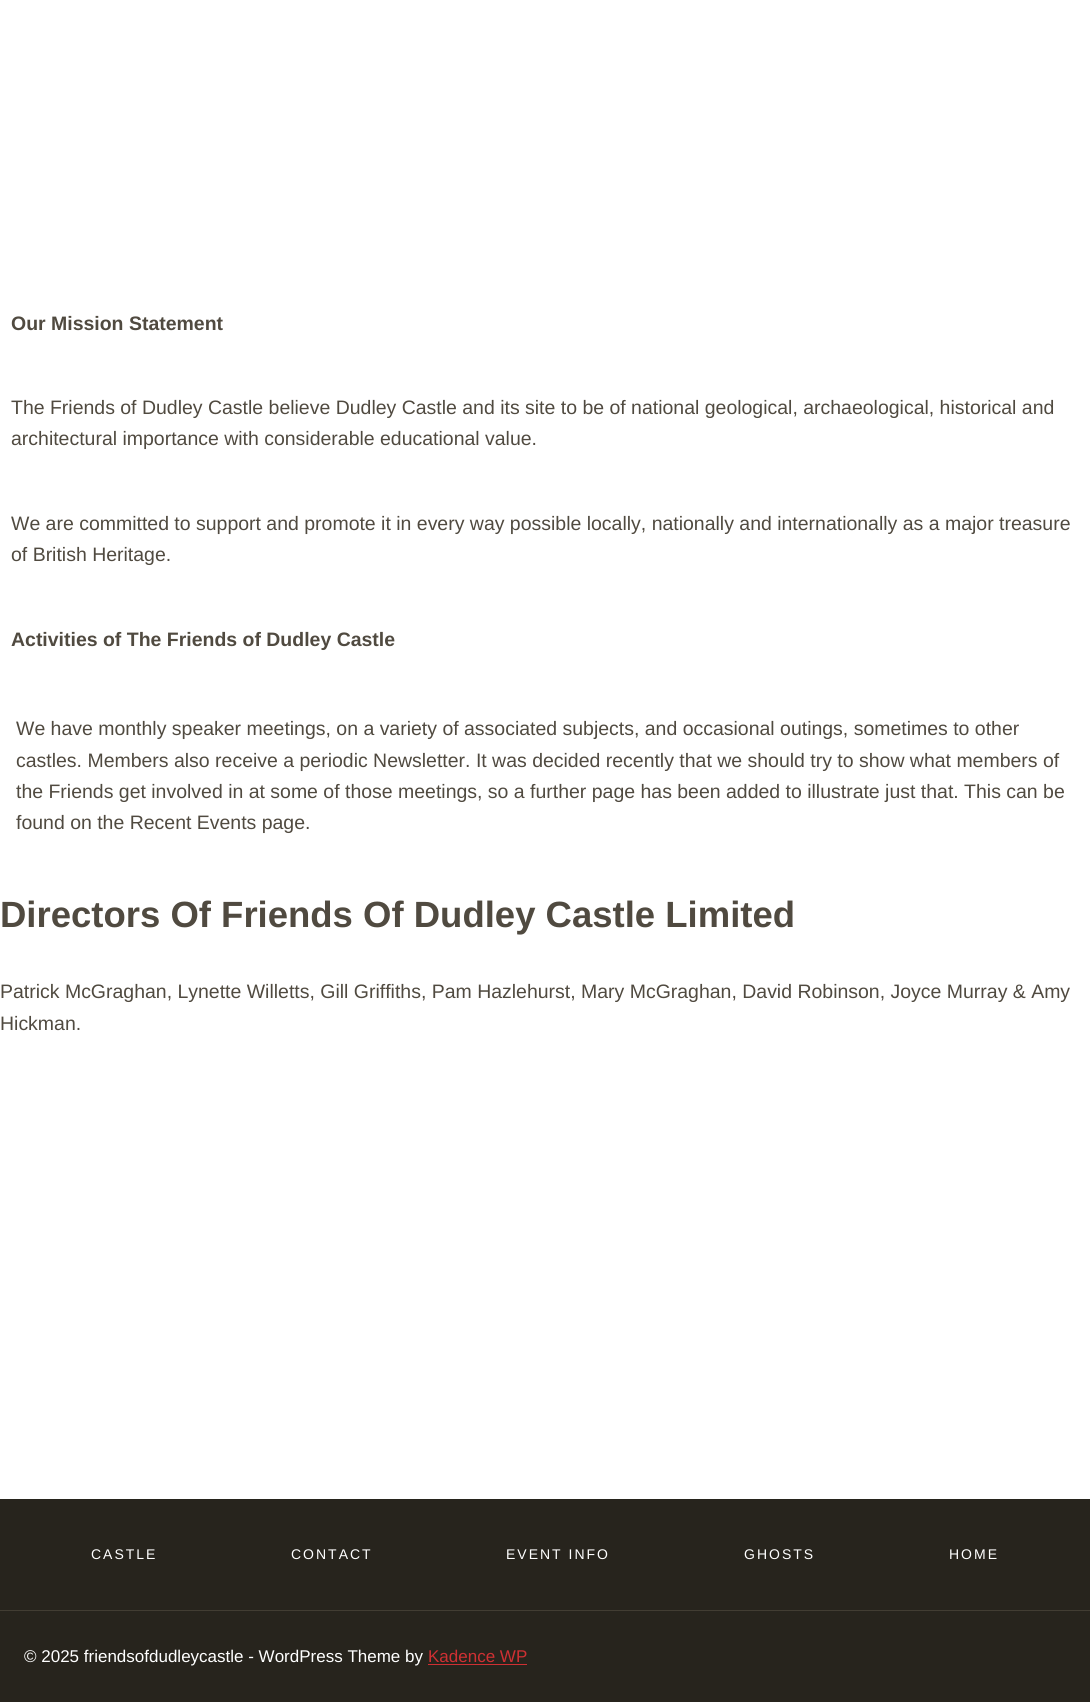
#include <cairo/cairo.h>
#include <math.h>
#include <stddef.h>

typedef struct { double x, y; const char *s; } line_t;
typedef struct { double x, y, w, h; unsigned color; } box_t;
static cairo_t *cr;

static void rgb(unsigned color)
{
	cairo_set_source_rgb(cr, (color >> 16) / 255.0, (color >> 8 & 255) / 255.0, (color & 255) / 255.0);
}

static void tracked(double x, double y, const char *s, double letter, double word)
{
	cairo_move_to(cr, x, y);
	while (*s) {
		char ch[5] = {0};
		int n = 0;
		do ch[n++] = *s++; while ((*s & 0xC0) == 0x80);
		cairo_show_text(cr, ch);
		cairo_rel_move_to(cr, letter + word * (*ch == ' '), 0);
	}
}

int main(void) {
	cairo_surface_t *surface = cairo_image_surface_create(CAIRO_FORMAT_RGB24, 1090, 1702);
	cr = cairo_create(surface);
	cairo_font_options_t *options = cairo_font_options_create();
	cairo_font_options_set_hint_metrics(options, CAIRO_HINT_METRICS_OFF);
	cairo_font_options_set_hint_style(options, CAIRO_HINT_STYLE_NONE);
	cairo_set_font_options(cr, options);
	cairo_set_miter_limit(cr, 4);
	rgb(0xffffff);
	cairo_paint(cr);
	{
		static const box_t items[] = {
			{0, 1499, 1090, 203, 0x27241d},
			{0, 1610, 1090, 1, 0x423d33},
			{428, 1664, 99, 1, 0xcf3033},
		};
		for (size_t i = 0; i < sizeof items / sizeof *items; i++) {
			rgb(items[i].color);
			cairo_rectangle(cr, items[i].x, items[i].y, items[i].w, items[i].h);
			cairo_fill(cr);
		}
	}
	cairo_select_font_face(cr, "Liberation Sans", CAIRO_FONT_SLANT_NORMAL, CAIRO_FONT_WEIGHT_BOLD);
	cairo_set_font_size(cr, 19.47);
	rgb(0x504a40);
	cairo_move_to(cr, 11, 330);
	cairo_show_text(cr, "Our Mission Statement");
	cairo_select_font_face(cr, "Liberation Sans", CAIRO_FONT_SLANT_NORMAL, CAIRO_FONT_WEIGHT_NORMAL);
	{
		static const line_t items[] = {
			{11, 414, "The Friends of Dudley Castle believe Dudley Castle and its site to be of national geological, archaeological, historical and"},
			{11, 445, "architectural importance with considerable educational value."},
			{11, 530, "We are committed to support and promote it in every way possible locally, nationally and internationally as a major treasure"},
			{11, 561, "of British Heritage."},
		};
		for (size_t i = 0; i < sizeof items / sizeof *items; i++) {
			cairo_move_to(cr, items[i].x, items[i].y);
			cairo_show_text(cr, items[i].s);
		}
	}
	cairo_select_font_face(cr, "Liberation Sans", CAIRO_FONT_SLANT_NORMAL, CAIRO_FONT_WEIGHT_BOLD);
	cairo_move_to(cr, 11, 646);
	cairo_show_text(cr, "Activities of The Friends of Dudley Castle");
	cairo_select_font_face(cr, "Liberation Sans", CAIRO_FONT_SLANT_NORMAL, CAIRO_FONT_WEIGHT_NORMAL);
	{
		static const line_t items[] = {
			{16, 735, "We have monthly speaker meetings, on a variety of associated subjects, and occasional outings, sometimes to other"},
			{16, 767, "castles. Members also receive a periodic Newsletter. It was decided recently that we should try to show what members of"},
			{16, 798, "the Friends get involved in at some of those meetings, so a further page has been added to illustrate just that. This can be"},
			{16, 829, "found on the Recent Events page."},
		};
		for (size_t i = 0; i < sizeof items / sizeof *items; i++) {
			cairo_move_to(cr, items[i].x, items[i].y);
			cairo_show_text(cr, items[i].s);
		}
	}
	cairo_select_font_face(cr, "Liberation Sans", CAIRO_FONT_SLANT_NORMAL, CAIRO_FONT_WEIGHT_BOLD);
	cairo_set_font_size(cr, 36.5);
	cairo_move_to(cr, 0, 927);
	cairo_show_text(cr, "Directors Of Friends Of Dudley Castle Limited");
	cairo_select_font_face(cr, "Liberation Sans", CAIRO_FONT_SLANT_NORMAL, CAIRO_FONT_WEIGHT_NORMAL);
	cairo_set_font_size(cr, 19.47);
	cairo_move_to(cr, 0, 998);
	cairo_show_text(cr, "Patrick McGraghan, Lynette Willetts, Gill Griffiths, Pam Hazlehurst, Mary McGraghan, David Robinson, Joyce Murray & Amy");
	cairo_move_to(cr, 0, 1030);
	cairo_show_text(cr, "Hickman.");
	cairo_set_font_size(cr, 14);
	rgb(0xffffff);
	{
		static const line_t items[] = {
			{91, 1559, "CASTLE"},
			{291, 1559, "CONTACT"},
			{506, 1559, "EVENT INFO"},
			{744, 1559, "GHOSTS"},
			{949, 1559, "HOME"},
		};
		for (size_t i = 0; i < sizeof items / sizeof *items; i++) {
			tracked(items[i].x, items[i].y, items[i].s, 2, 0);
		}
	}
	cairo_set_font_size(cr, 17);
	cairo_move_to(cr, 24, 1662);
	cairo_show_text(cr, "© 2025 friendsofdudleycastle - WordPress Theme by");
	rgb(0xcf3033);
	cairo_move_to(cr, 428, 1662);
	cairo_show_text(cr, "Kadence WP");
	cairo_surface_write_to_png(surface, "page.png");
	cairo_font_options_destroy(options);
	cairo_destroy(cr);
	cairo_surface_destroy(surface);
	return 0;
}
